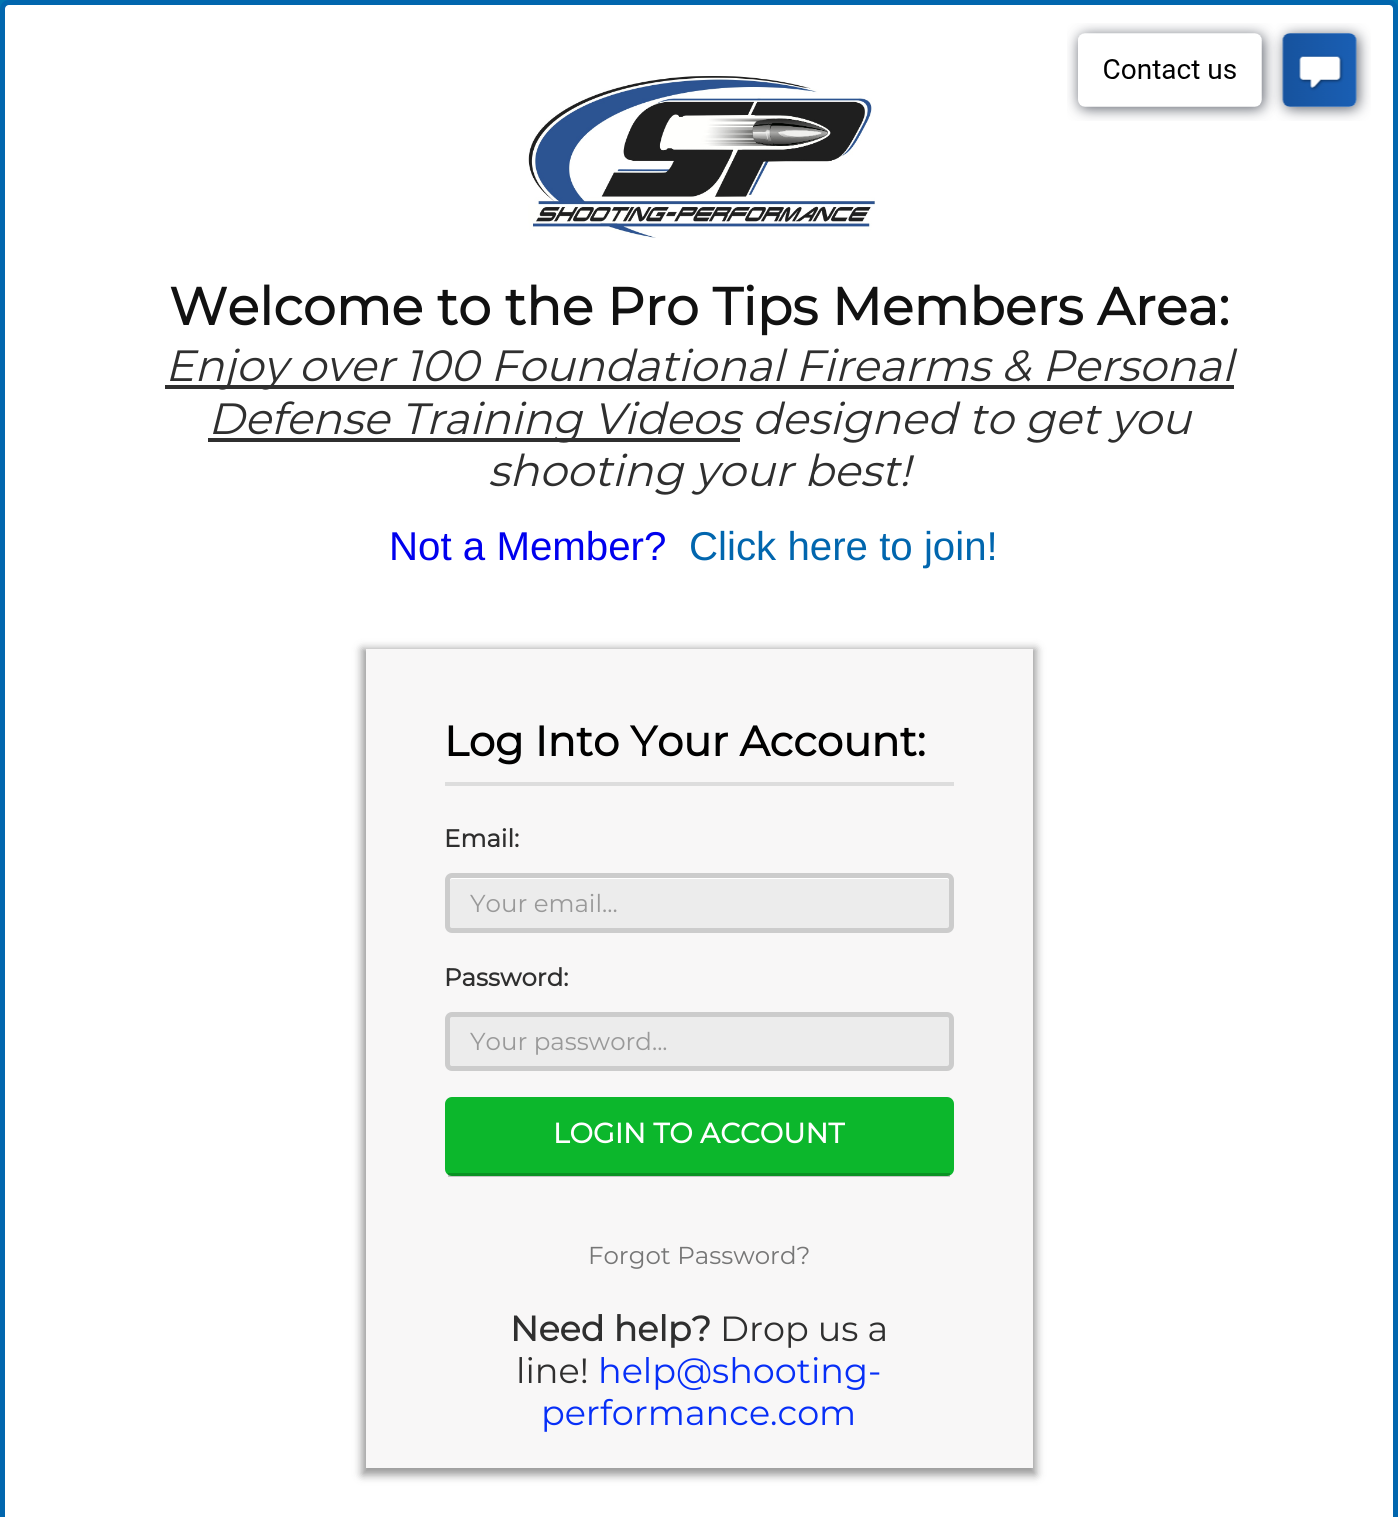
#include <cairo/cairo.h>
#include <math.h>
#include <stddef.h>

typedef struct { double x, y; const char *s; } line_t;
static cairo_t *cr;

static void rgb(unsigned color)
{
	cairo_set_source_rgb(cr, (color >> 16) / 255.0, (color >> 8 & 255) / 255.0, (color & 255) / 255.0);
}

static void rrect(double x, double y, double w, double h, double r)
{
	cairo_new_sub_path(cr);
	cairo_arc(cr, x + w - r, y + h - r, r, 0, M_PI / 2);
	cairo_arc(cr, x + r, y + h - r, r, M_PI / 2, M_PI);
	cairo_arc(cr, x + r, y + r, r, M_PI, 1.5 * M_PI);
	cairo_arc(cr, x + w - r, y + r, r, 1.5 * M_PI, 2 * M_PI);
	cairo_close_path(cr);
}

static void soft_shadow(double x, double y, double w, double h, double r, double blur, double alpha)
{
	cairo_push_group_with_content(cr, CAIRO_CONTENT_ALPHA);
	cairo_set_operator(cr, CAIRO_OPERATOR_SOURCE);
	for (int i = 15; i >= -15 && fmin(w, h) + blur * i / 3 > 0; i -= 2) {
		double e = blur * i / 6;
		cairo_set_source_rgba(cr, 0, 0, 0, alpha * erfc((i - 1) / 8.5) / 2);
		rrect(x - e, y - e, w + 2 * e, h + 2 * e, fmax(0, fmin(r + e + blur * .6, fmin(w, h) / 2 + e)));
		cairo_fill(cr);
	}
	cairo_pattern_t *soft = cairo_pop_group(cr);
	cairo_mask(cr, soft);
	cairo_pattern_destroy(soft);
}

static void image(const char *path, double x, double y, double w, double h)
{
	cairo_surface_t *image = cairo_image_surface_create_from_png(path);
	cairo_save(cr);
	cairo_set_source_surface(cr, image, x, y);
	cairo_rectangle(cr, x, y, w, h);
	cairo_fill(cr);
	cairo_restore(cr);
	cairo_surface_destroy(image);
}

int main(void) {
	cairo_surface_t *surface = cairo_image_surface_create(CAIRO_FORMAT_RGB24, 1398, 1517);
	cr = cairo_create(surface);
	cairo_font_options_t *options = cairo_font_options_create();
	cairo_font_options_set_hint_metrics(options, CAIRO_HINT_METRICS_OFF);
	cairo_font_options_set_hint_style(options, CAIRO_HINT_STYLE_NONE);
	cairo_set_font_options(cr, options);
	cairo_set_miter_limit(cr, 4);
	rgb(0x0075b2);
	cairo_paint(cr);
	rgb(0xffffff);
	rrect(2.5, 2.5, 1393, 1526, 6.5);
	cairo_fill_preserve(cr);
	rgb(0x0166ae);
	cairo_set_line_width(cr, 5);
	cairo_stroke(cr);
	image("img/1.png", 1067, 23, 304, 98);
	image("img/2.png", 528, 76, 347, 162);
	rgb(0x2f2f2f);
	cairo_rectangle(cr, 165, 385, 1069, 4);
	cairo_fill(cr);
	cairo_rectangle(cr, 208, 438, 532, 4);
	cairo_fill(cr);
	cairo_save(cr);
	cairo_set_fill_rule(cr, CAIRO_FILL_RULE_EVEN_ODD);
	cairo_new_path(cr);
	cairo_move_to(cr, 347, 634);
	cairo_line_to(cr, 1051, 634);
	cairo_line_to(cr, 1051, 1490);
	cairo_line_to(cr, 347, 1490);
	cairo_close_path(cr);
	cairo_move_to(cr, 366, 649);
	cairo_line_to(cr, 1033, 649);
	cairo_line_to(cr, 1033, 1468);
	cairo_line_to(cr, 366, 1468);
	cairo_close_path(cr);
	cairo_clip(cr);
	rgb(0x000000);
	soft_shadow(362, 649, 674, 826, 0, 4.5, 0.4);
	cairo_restore(cr);
	cairo_set_source_rgba(cr, 0.906, 0.894, 0.894, 0.32);
	cairo_rectangle(cr, 366, 649, 667, 819);
	cairo_fill(cr);
	rgb(0xdddddd);
	cairo_rectangle(cr, 445, 782, 509, 4);
	cairo_fill(cr);
	rgb(0xffffff);
	rrect(445, 873, 509, 60, 7);
	cairo_fill(cr);
	rgb(0xececec);
	cairo_new_path(cr);
	cairo_move_to(cr, 452, 879);
	cairo_curve_to(cr, 451, 879, 450, 880, 450, 881);
	cairo_line_to(cr, 450, 926);
	cairo_curve_to(cr, 450, 927, 451, 928, 452, 928);
	cairo_line_to(cr, 948, 928);
	cairo_curve_to(cr, 949, 927, 949, 927, 949, 926);
	cairo_line_to(cr, 949, 881);
	cairo_curve_to(cr, 949, 880, 948, 879, 947, 879);
	cairo_close_path(cr);
	cairo_fill(cr);
	rrect(447.5, 875.5, 504, 55, 4.5);
	cairo_set_source_rgba(cr, 0, 0, 0, 0.2);
	cairo_stroke(cr);
	rgb(0xffffff);
	rrect(445, 1012, 509, 59, 7);
	cairo_fill(cr);
	rgb(0xececec);
	cairo_new_path(cr);
	cairo_move_to(cr, 452, 1017);
	cairo_curve_to(cr, 451, 1017, 450, 1018, 450, 1019);
	cairo_line_to(cr, 450, 1064);
	cairo_curve_to(cr, 450, 1065, 451, 1066, 452, 1066);
	cairo_line_to(cr, 948, 1066);
	cairo_curve_to(cr, 949, 1065, 949, 1065, 949, 1064);
	cairo_line_to(cr, 949, 1019);
	cairo_curve_to(cr, 949, 1018, 948, 1017, 947, 1017);
	cairo_close_path(cr);
	cairo_fill(cr);
	rrect(447.5, 1014.5, 504, 54, 4.5);
	cairo_set_source_rgba(cr, 0, 0, 0, 0.2);
	cairo_stroke(cr);
	rgb(0x0cb72c);
	rrect(445, 1097, 509, 79, 7);
	cairo_fill(cr);
	cairo_set_source_rgba(cr, 0, 0, 0, 0.2);
	cairo_rectangle(cr, 448, 1173, 502, 4);
	cairo_fill(cr);
	cairo_select_font_face(cr, "Montserrat", CAIRO_FONT_SLANT_NORMAL, CAIRO_FONT_WEIGHT_BOLD);
	cairo_set_font_size(cr, 52.5);
	rgb(0x111111);
	cairo_move_to(cr, 169, 325);
	cairo_show_text(cr, "Welcome to the Pro Tips Members Area:");
	cairo_select_font_face(cr, "Montserrat Thin", CAIRO_FONT_SLANT_ITALIC, CAIRO_FONT_WEIGHT_NORMAL);
	cairo_set_font_size(cr, 43.75);
	rgb(0x2f2f2f);
	{
		static const line_t items[] = {
			{165, 381, "Enjoy over 100 Foundational Firearms & Personal"},
			{208, 434, "Defense Training Videos designed to get you"},
			{488, 486, "shooting your best!"},
		};
		for (size_t i = 0; i < sizeof items / sizeof *items; i++) {
			cairo_move_to(cr, items[i].x, items[i].y);
			cairo_show_text(cr, items[i].s);
		}
	}
	cairo_select_font_face(cr, "Liberation Sans", CAIRO_FONT_SLANT_NORMAL, CAIRO_FONT_WEIGHT_NORMAL);
	cairo_set_font_size(cr, 40.25);
	rgb(0x0000ee);
	cairo_move_to(cr, 389, 560);
	cairo_show_text(cr, "Not a Member?");
	rgb(0x0166ae);
	cairo_move_to(cr, 689, 560);
	cairo_show_text(cr, "Click here to join!");
	cairo_select_font_face(cr, "Montserrat", CAIRO_FONT_SLANT_NORMAL, CAIRO_FONT_WEIGHT_BOLD);
	cairo_set_font_size(cr, 42);
	rgb(0x000000);
	cairo_move_to(cr, 444, 756);
	cairo_show_text(cr, "Log Into Your Account:");
	cairo_set_font_size(cr, 24.5);
	rgb(0x2f2f2f);
	cairo_move_to(cr, 444, 847);
	cairo_show_text(cr, "Email:");
	cairo_select_font_face(cr, "Montserrat Thin", CAIRO_FONT_SLANT_NORMAL, CAIRO_FONT_WEIGHT_NORMAL);
	rgb(0x999999);
	cairo_move_to(cr, 470, 912);
	cairo_show_text(cr, "Your email...");
	cairo_select_font_face(cr, "Montserrat", CAIRO_FONT_SLANT_NORMAL, CAIRO_FONT_WEIGHT_BOLD);
	rgb(0x2f2f2f);
	cairo_move_to(cr, 444, 986);
	cairo_show_text(cr, "Password:");
	cairo_select_font_face(cr, "Montserrat Thin", CAIRO_FONT_SLANT_NORMAL, CAIRO_FONT_WEIGHT_NORMAL);
	rgb(0x999999);
	cairo_move_to(cr, 470, 1050);
	cairo_show_text(cr, "Your password...");
	cairo_select_font_face(cr, "Montserrat", CAIRO_FONT_SLANT_NORMAL, CAIRO_FONT_WEIGHT_BOLD);
	cairo_set_font_size(cr, 28);
	rgb(0xffffff);
	cairo_move_to(cr, 553, 1143);
	cairo_show_text(cr, "LOGIN TO ACCOUNT");
	cairo_select_font_face(cr, "Montserrat Thin", CAIRO_FONT_SLANT_NORMAL, CAIRO_FONT_WEIGHT_NORMAL);
	cairo_set_font_size(cr, 24.5);
	rgb(0x767676);
	cairo_move_to(cr, 588, 1264);
	cairo_show_text(cr, "Forgot Password?");
	cairo_select_font_face(cr, "Montserrat", CAIRO_FONT_SLANT_NORMAL, CAIRO_FONT_WEIGHT_BOLD);
	cairo_set_font_size(cr, 35);
	rgb(0x2f2f2f);
	cairo_move_to(cr, 510, 1341);
	cairo_show_text(cr, "Need help?");
	cairo_select_font_face(cr, "Montserrat Thin", CAIRO_FONT_SLANT_NORMAL, CAIRO_FONT_WEIGHT_NORMAL);
	cairo_move_to(cr, 720, 1341);
	cairo_show_text(cr, "Drop us a");
	cairo_move_to(cr, 516, 1383);
	cairo_show_text(cr, "line!");
	rgb(0x072ff7);
	cairo_move_to(cr, 598, 1383);
	cairo_show_text(cr, "help@shooting-");
	cairo_move_to(cr, 541, 1425);
	cairo_show_text(cr, "performance.com");
	cairo_surface_write_to_png(surface, "page.png");
	cairo_font_options_destroy(options);
	cairo_destroy(cr);
	cairo_surface_destroy(surface);
	return 0;
}
